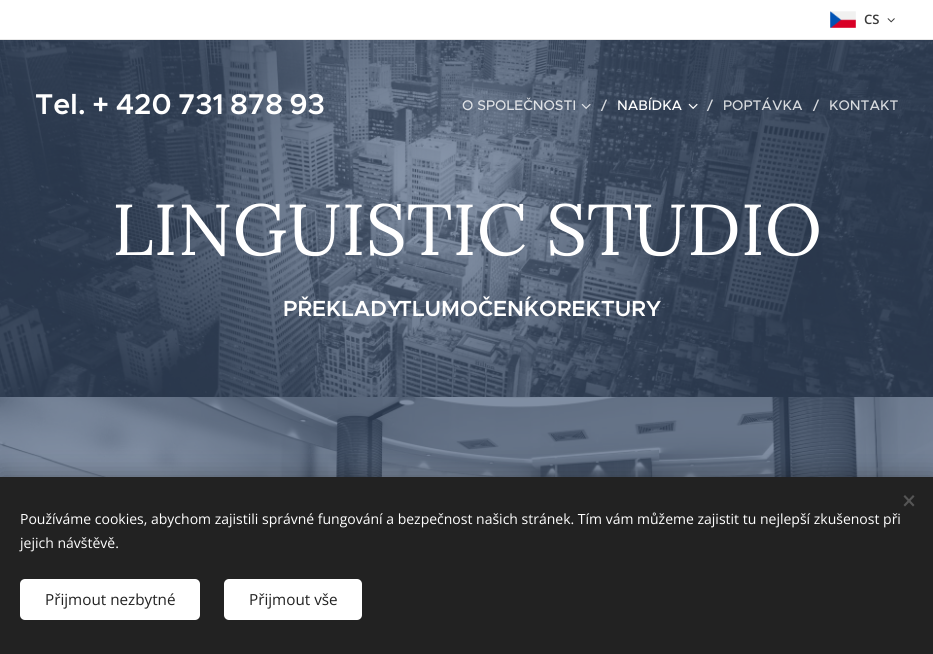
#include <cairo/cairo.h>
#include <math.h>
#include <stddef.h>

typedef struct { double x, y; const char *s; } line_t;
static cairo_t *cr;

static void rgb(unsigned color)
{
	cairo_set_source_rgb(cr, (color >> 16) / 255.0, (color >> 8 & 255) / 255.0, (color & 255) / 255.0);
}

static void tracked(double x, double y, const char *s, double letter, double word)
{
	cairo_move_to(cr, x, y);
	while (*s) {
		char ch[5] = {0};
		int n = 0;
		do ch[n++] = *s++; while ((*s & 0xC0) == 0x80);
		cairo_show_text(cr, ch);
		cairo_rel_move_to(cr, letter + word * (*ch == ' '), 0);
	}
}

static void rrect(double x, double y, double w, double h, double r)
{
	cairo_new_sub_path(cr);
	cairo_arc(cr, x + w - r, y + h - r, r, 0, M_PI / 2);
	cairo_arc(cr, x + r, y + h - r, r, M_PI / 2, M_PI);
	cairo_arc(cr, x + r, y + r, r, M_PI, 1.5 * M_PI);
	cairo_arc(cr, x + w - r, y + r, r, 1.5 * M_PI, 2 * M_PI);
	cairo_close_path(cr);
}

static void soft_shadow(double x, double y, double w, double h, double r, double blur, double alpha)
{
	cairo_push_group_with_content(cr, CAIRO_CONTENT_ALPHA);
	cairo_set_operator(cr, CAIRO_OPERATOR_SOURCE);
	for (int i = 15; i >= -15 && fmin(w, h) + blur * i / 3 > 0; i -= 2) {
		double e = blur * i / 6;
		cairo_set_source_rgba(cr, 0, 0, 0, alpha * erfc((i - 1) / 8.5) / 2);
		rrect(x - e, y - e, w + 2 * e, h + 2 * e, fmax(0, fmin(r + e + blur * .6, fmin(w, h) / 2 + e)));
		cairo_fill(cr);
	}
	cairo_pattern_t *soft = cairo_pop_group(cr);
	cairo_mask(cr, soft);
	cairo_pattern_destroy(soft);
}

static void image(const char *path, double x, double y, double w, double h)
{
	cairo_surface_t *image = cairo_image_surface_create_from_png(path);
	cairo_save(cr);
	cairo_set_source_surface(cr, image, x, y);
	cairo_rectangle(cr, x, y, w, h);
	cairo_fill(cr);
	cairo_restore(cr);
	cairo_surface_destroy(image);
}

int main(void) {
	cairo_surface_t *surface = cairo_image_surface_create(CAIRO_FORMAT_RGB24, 933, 654);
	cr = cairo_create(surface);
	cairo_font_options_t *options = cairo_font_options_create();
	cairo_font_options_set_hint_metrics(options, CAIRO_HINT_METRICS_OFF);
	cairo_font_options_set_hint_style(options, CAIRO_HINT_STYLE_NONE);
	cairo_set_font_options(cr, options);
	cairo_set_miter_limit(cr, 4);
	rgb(0xffffff);
	cairo_paint(cr);
	image("img/1.png", 830, 11, 26, 17);
	image("img/2.png", 887, 18, 8, 5);
	rgb(0xe8e8e8);
	cairo_rectangle(cr, 0, 39, 933, 1);
	cairo_fill(cr);
	image("img/5.png", 0, 40, 933, 357);
	image("img/3.png", 581, 103, 10, 6);
	image("img/4.png", 688, 103, 10, 6);
	image("img/6.png", 0, 397, 933, 80);
	rgb(0x000000);
	soft_shadow(0, 477, 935, 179, 0, 12.5, 0.33);
	rgb(0x222222);
	cairo_rectangle(cr, 0, 477, 933, 177);
	cairo_fill(cr);
	rgb(0x555555);
	cairo_new_path(cr);
	cairo_move_to(cr, 903.5, 505);
	cairo_line_to(cr, 913, 495);
	cairo_line_to(cr, 914.5, 496.5);
	cairo_line_to(cr, 905, 506.5);
	cairo_close_path(cr);
	cairo_fill(cr);
	cairo_new_path(cr);
	cairo_move_to(cr, 905, 495);
	cairo_line_to(cr, 914.5, 505);
	cairo_line_to(cr, 913, 506.5);
	cairo_line_to(cr, 903.5, 496.5);
	cairo_close_path(cr);
	cairo_fill(cr);
	rgb(0xffffff);
	rrect(20, 579, 180, 41, 5);
	cairo_fill(cr);
	rrect(224, 579, 138, 41, 5);
	cairo_fill(cr);
	cairo_select_font_face(cr, "Open Sans SemiBold", CAIRO_FONT_SLANT_NORMAL, CAIRO_FONT_WEIGHT_NORMAL);
	cairo_set_font_size(cr, 13);
	rgb(0x393939);
	cairo_move_to(cr, 864, 24);
	cairo_show_text(cr, "CS");
	cairo_select_font_face(cr, "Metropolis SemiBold", CAIRO_FONT_SLANT_NORMAL, CAIRO_FONT_WEIGHT_NORMAL);
	cairo_set_font_size(cr, 28.75);
	rgb(0xffffff);
	tracked(35, 114, "Tel. + 420 731 878 93", 0, -1.75);
	cairo_select_font_face(cr, "Metropolis Medium", CAIRO_FONT_SLANT_NORMAL, CAIRO_FONT_WEIGHT_NORMAL);
	cairo_set_font_size(cr, 14);
	rgb(0xdee1e5);
	cairo_move_to(cr, 462, 110);
	cairo_show_text(cr, "O SPOLEČNOSTI");
	rgb(0xd7dade);
	cairo_move_to(cr, 601, 110);
	cairo_show_text(cr, "/");
	rgb(0xffffff);
	cairo_move_to(cr, 617, 110);
	cairo_show_text(cr, "NABÍDKA");
	rgb(0xd7dade);
	{
		static const line_t items[] = {
			{707, 110, "/"},
			{723, 110, "POPTÁVKA"},
			{813, 110, "/"},
			{829, 110, "KONTAKT"},
		};
		for (size_t i = 0; i < sizeof items / sizeof *items; i++) {
			cairo_move_to(cr, items[i].x, items[i].y);
			cairo_show_text(cr, items[i].s);
		}
	}
	cairo_select_font_face(cr, "Lora", CAIRO_FONT_SLANT_NORMAL, CAIRO_FONT_WEIGHT_NORMAL);
	cairo_set_font_size(cr, 72);
	rgb(0xffffff);
	cairo_move_to(cr, 112, 255);
	cairo_show_text(cr, "LINGUISTIC STUDIO");
	cairo_select_font_face(cr, "Metropolis SemiBold", CAIRO_FONT_SLANT_NORMAL, CAIRO_FONT_WEIGHT_NORMAL);
	cairo_set_font_size(cr, 22);
	{
		static const line_t items[] = {
			{283, 316, "PŘEKLADY"},
			{398, 316, "TLUMOČENÍ"},
			{524, 316, "KOREKTURY"},
		};
		for (size_t i = 0; i < sizeof items / sizeof *items; i++) {
			cairo_move_to(cr, items[i].x, items[i].y);
			cairo_show_text(cr, items[i].s);
		}
	}
	cairo_select_font_face(cr, "Open Sans", CAIRO_FONT_SLANT_NORMAL, CAIRO_FONT_WEIGHT_NORMAL);
	cairo_set_font_size(cr, 14);
	cairo_move_to(cr, 20, 524);
	cairo_show_text(cr, "Používáme cookies, abychom zajistili správné fungování a bezpečnost našich stránek. Tím vám můžeme zajistit tu nejlepší zkušenost při");
	cairo_move_to(cr, 20, 548);
	cairo_show_text(cr, "jejich návštěvě.");
	cairo_set_font_size(cr, 15.25);
	rgb(0x222222);
	cairo_move_to(cr, 45, 605);
	cairo_show_text(cr, "Přijmout nezbytné");
	cairo_move_to(cr, 249, 605);
	cairo_show_text(cr, "Přijmout vše");
	cairo_surface_write_to_png(surface, "page.png");
	cairo_font_options_destroy(options);
	cairo_destroy(cr);
	cairo_surface_destroy(surface);
	return 0;
}
